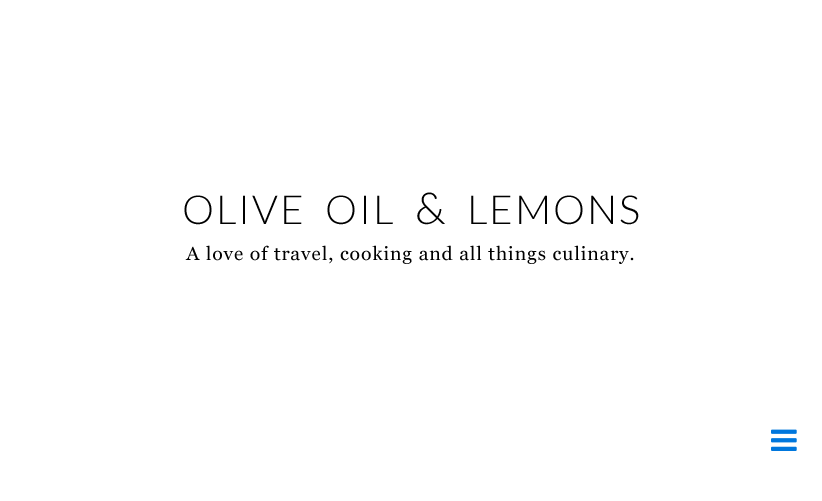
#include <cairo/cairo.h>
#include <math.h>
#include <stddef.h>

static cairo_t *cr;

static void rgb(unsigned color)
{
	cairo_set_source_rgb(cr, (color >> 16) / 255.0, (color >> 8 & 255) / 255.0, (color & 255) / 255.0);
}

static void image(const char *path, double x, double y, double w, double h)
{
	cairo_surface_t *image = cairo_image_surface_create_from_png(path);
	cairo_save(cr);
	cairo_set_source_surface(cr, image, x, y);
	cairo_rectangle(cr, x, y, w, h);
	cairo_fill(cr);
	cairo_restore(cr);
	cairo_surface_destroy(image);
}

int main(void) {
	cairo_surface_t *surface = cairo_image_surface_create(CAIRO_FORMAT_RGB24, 822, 501);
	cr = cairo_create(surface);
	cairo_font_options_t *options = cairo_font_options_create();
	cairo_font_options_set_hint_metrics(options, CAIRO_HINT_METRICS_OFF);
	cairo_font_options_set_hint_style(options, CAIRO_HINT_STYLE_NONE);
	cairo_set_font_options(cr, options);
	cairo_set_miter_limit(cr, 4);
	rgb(0xffffff);
	cairo_paint(cr);
	image("img/1.png", 184, 192, 455, 72);
	image("img/2.png", 771, 429, 26, 22);
	cairo_surface_write_to_png(surface, "page.png");
	cairo_font_options_destroy(options);
	cairo_destroy(cr);
	cairo_surface_destroy(surface);
	return 0;
}
